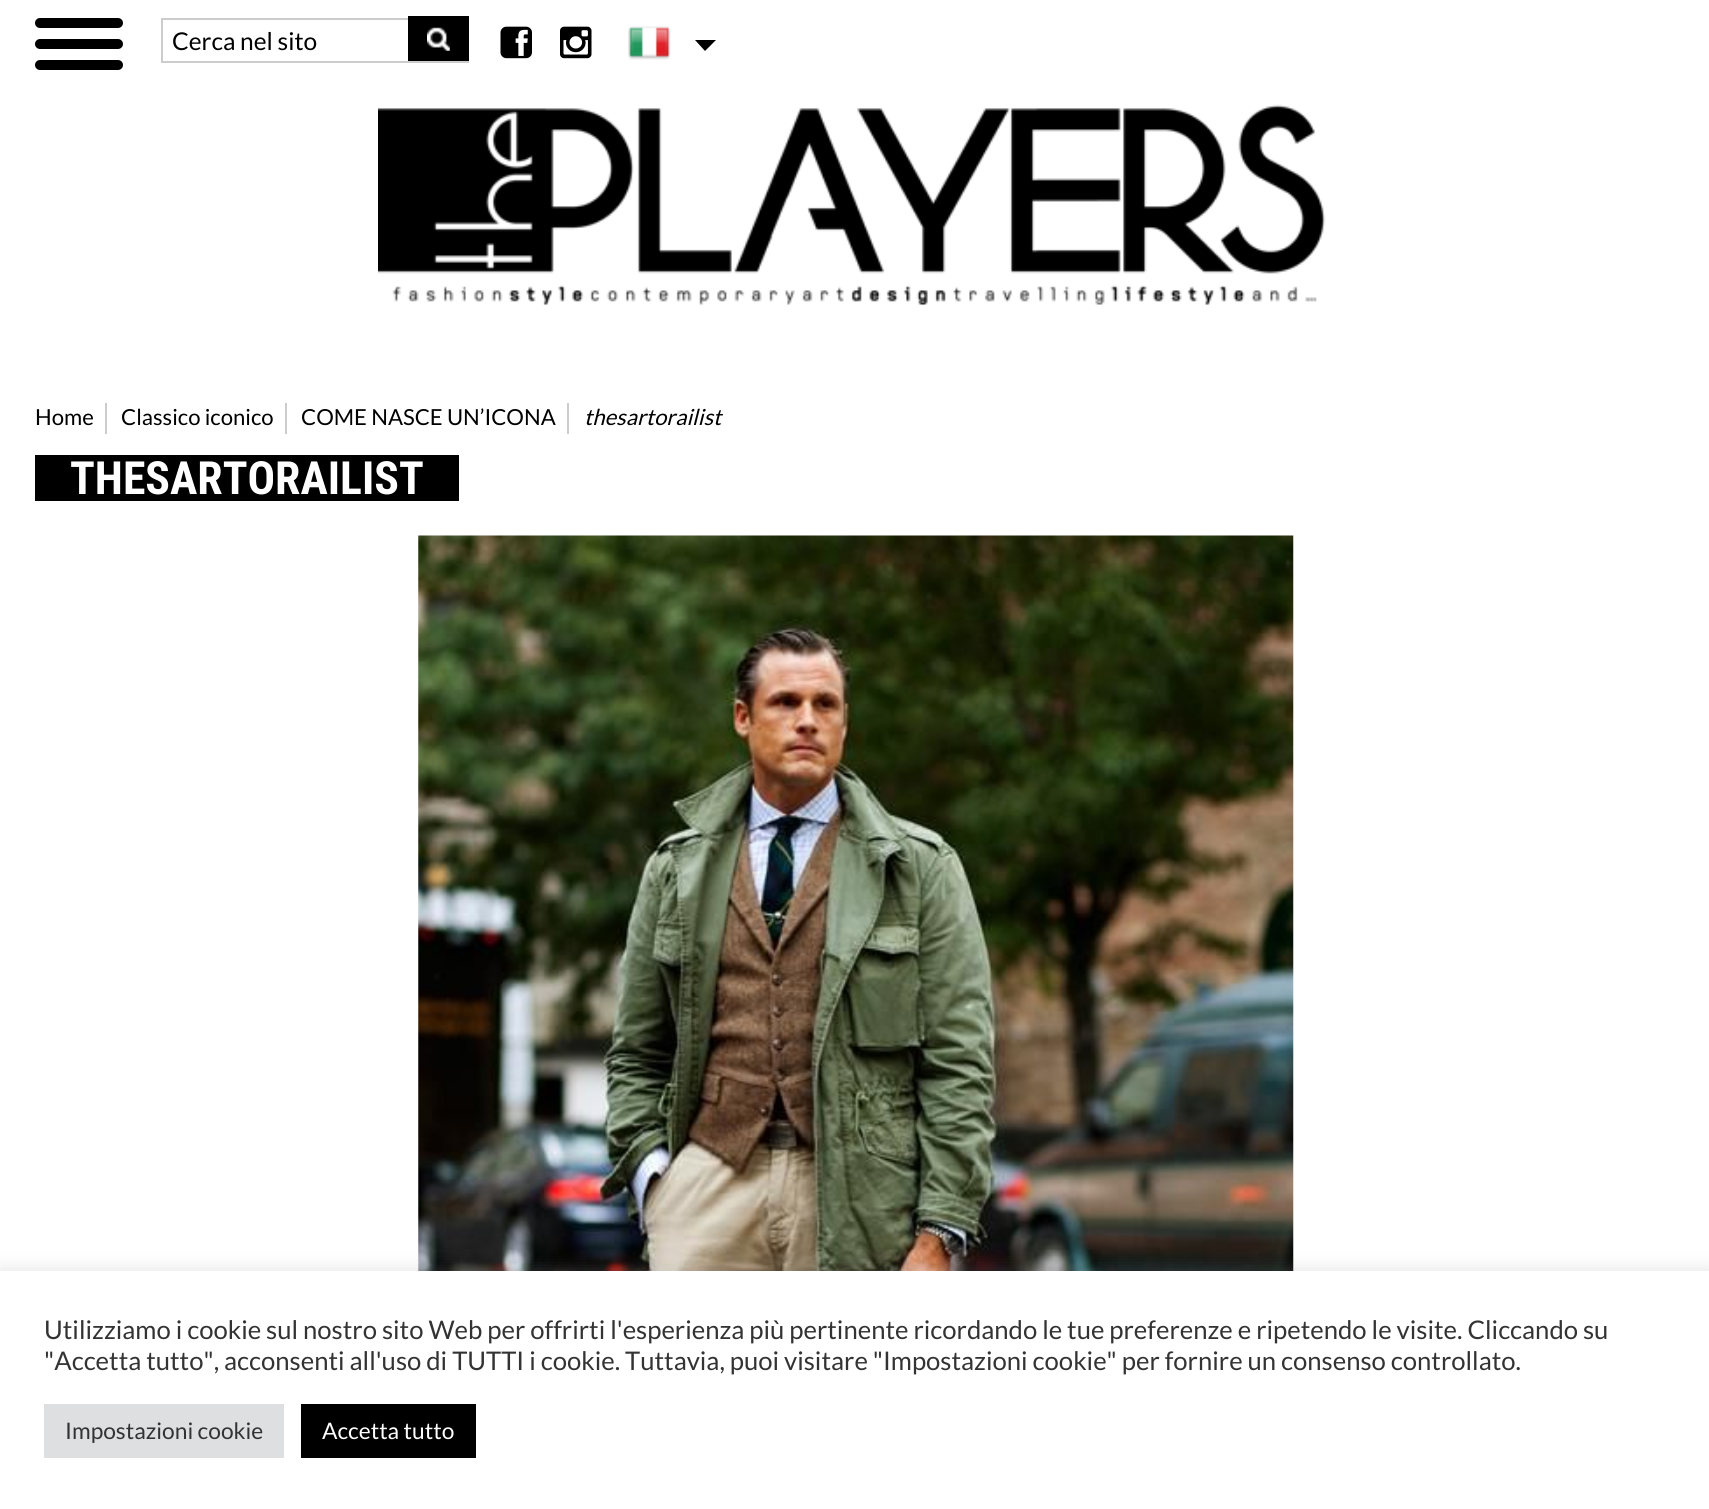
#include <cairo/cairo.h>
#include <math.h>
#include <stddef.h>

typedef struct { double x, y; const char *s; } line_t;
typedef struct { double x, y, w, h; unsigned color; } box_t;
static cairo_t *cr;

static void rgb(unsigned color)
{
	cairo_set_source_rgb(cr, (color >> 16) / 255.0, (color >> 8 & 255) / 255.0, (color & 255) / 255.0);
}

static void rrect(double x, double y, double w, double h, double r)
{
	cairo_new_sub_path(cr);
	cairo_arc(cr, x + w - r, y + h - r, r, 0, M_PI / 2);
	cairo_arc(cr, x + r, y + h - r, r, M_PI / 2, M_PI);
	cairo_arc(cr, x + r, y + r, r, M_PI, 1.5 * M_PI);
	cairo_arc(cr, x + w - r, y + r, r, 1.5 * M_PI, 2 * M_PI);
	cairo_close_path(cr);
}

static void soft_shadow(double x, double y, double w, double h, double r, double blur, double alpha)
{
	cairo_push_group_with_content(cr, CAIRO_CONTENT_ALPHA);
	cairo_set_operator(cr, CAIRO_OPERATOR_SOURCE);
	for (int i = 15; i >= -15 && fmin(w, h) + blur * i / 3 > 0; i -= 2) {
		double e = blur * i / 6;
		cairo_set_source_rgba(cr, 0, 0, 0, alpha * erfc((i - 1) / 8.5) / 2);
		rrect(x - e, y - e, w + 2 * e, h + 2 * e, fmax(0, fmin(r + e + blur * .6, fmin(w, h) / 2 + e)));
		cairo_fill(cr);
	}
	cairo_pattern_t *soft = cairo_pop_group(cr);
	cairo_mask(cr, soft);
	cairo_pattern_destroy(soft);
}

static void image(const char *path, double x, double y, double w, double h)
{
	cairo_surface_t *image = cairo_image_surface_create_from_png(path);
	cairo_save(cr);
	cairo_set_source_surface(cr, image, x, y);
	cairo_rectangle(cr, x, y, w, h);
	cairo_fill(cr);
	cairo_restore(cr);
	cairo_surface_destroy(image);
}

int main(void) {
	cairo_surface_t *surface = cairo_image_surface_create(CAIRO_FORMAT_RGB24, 1709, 1509);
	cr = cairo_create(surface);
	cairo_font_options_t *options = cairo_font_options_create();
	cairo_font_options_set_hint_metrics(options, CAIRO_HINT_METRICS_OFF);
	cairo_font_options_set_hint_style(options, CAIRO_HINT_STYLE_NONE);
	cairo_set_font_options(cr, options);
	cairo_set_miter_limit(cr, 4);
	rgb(0xffffff);
	cairo_paint(cr);
	rgb(0x000000);
	rrect(35, 18, 88, 10, 5);
	cairo_fill(cr);
	rrect(35, 39, 88, 10, 5);
	cairo_fill(cr);
	rrect(35, 60, 88, 10, 5);
	cairo_fill(cr);
	cairo_rectangle(cr, 162, 19, 306, 43);
	rgb(0xcccccc);
	cairo_stroke(cr);
	rgb(0x000000);
	cairo_rectangle(cr, 408, 16, 61, 45);
	cairo_fill(cr);
	image("img/1.png", 427, 27, 23, 24);
	image("img/2.png", 500, 26, 32, 33);
	image("img/3.png", 560, 26, 32, 33);
	image("img/4.png", 628, 26, 43, 34);
	cairo_new_path(cr);
	cairo_move_to(cr, 695, 40);
	cairo_line_to(cr, 716, 40);
	cairo_line_to(cr, 705, 51);
	cairo_close_path(cr);
	cairo_fill(cr);
	image("img/5.png", 378, 104, 948, 202);
	{
		static const box_t items[] = {
			{105, 403, 2, 31, 0xcccccc},
			{285, 403, 2, 31, 0xcccccc},
			{567, 403, 2, 31, 0xcccccc},
			{35, 455, 424, 46, 0x000000},
		};
		for (size_t i = 0; i < sizeof items / sizeof *items; i++) {
			rgb(items[i].color);
			cairo_rectangle(cr, items[i].x, items[i].y, items[i].w, items[i].h);
			cairo_fill(cr);
		}
	}
	image("img/6.png", 418, 535, 876, 736);
	rgb(0xacabab);
	soft_shadow(0, 1269, 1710, 240, 0, 9, 0.3);
	{
		static const box_t items[] = {
			{0, 1271, 1709, 238, 0xffffff},
			{44, 1404, 240, 54, 0xdedfe0},
			{301, 1404, 175, 54, 0x000000},
		};
		for (size_t i = 0; i < sizeof items / sizeof *items; i++) {
			rgb(items[i].color);
			cairo_rectangle(cr, items[i].x, items[i].y, items[i].w, items[i].h);
			cairo_fill(cr);
		}
	}
	cairo_select_font_face(cr, "Lato", CAIRO_FONT_SLANT_NORMAL, CAIRO_FONT_WEIGHT_NORMAL);
	cairo_set_font_size(cr, 24.5);
	cairo_move_to(cr, 172, 50);
	cairo_show_text(cr, "Cerca nel sito");
	cairo_set_font_size(cr, 22.1);
	{
		static const line_t items[] = {
			{35, 425, "Home"},
			{121, 425, "Classico iconico"},
			{301, 425, "COME NASCE UN’ICONA"},
		};
		for (size_t i = 0; i < sizeof items / sizeof *items; i++) {
			cairo_move_to(cr, items[i].x, items[i].y);
			cairo_show_text(cr, items[i].s);
		}
	}
	cairo_select_font_face(cr, "Lato", CAIRO_FONT_SLANT_ITALIC, CAIRO_FONT_WEIGHT_NORMAL);
	cairo_move_to(cr, 584, 425);
	cairo_show_text(cr, "thesartorailist");
	cairo_select_font_face(cr, "Roboto Condensed", CAIRO_FONT_SLANT_NORMAL, CAIRO_FONT_WEIGHT_BOLD);
	cairo_set_font_size(cr, 45.75);
	rgb(0xffffff);
	cairo_move_to(cr, 70, 494);
	cairo_show_text(cr, "THESARTORAILIST");
	cairo_select_font_face(cr, "Lato", CAIRO_FONT_SLANT_NORMAL, CAIRO_FONT_WEIGHT_NORMAL);
	cairo_set_font_size(cr, 25.67);
	rgb(0x333333);
	cairo_move_to(cr, 44, 1339);
	cairo_show_text(cr, "Utilizziamo i cookie sul nostro sito Web per offrirti l'esperienza più pertinente ricordando le tue preferenze e ripetendo le visite. Cliccando su");
	cairo_move_to(cr, 44, 1370);
	cairo_show_text(cr, "\"Accetta tutto\", acconsenti all'uso di TUTTI i cookie. Tuttavia, puoi visitare \"Impostazioni cookie\" per fornire un consenso controllato.");
	cairo_set_font_size(cr, 22.75);
	cairo_move_to(cr, 65, 1439);
	cairo_show_text(cr, "Impostazioni cookie");
	rgb(0xffffff);
	cairo_move_to(cr, 322, 1439);
	cairo_show_text(cr, "Accetta tutto");
	cairo_surface_write_to_png(surface, "page.png");
	cairo_font_options_destroy(options);
	cairo_destroy(cr);
	cairo_surface_destroy(surface);
	return 0;
}
